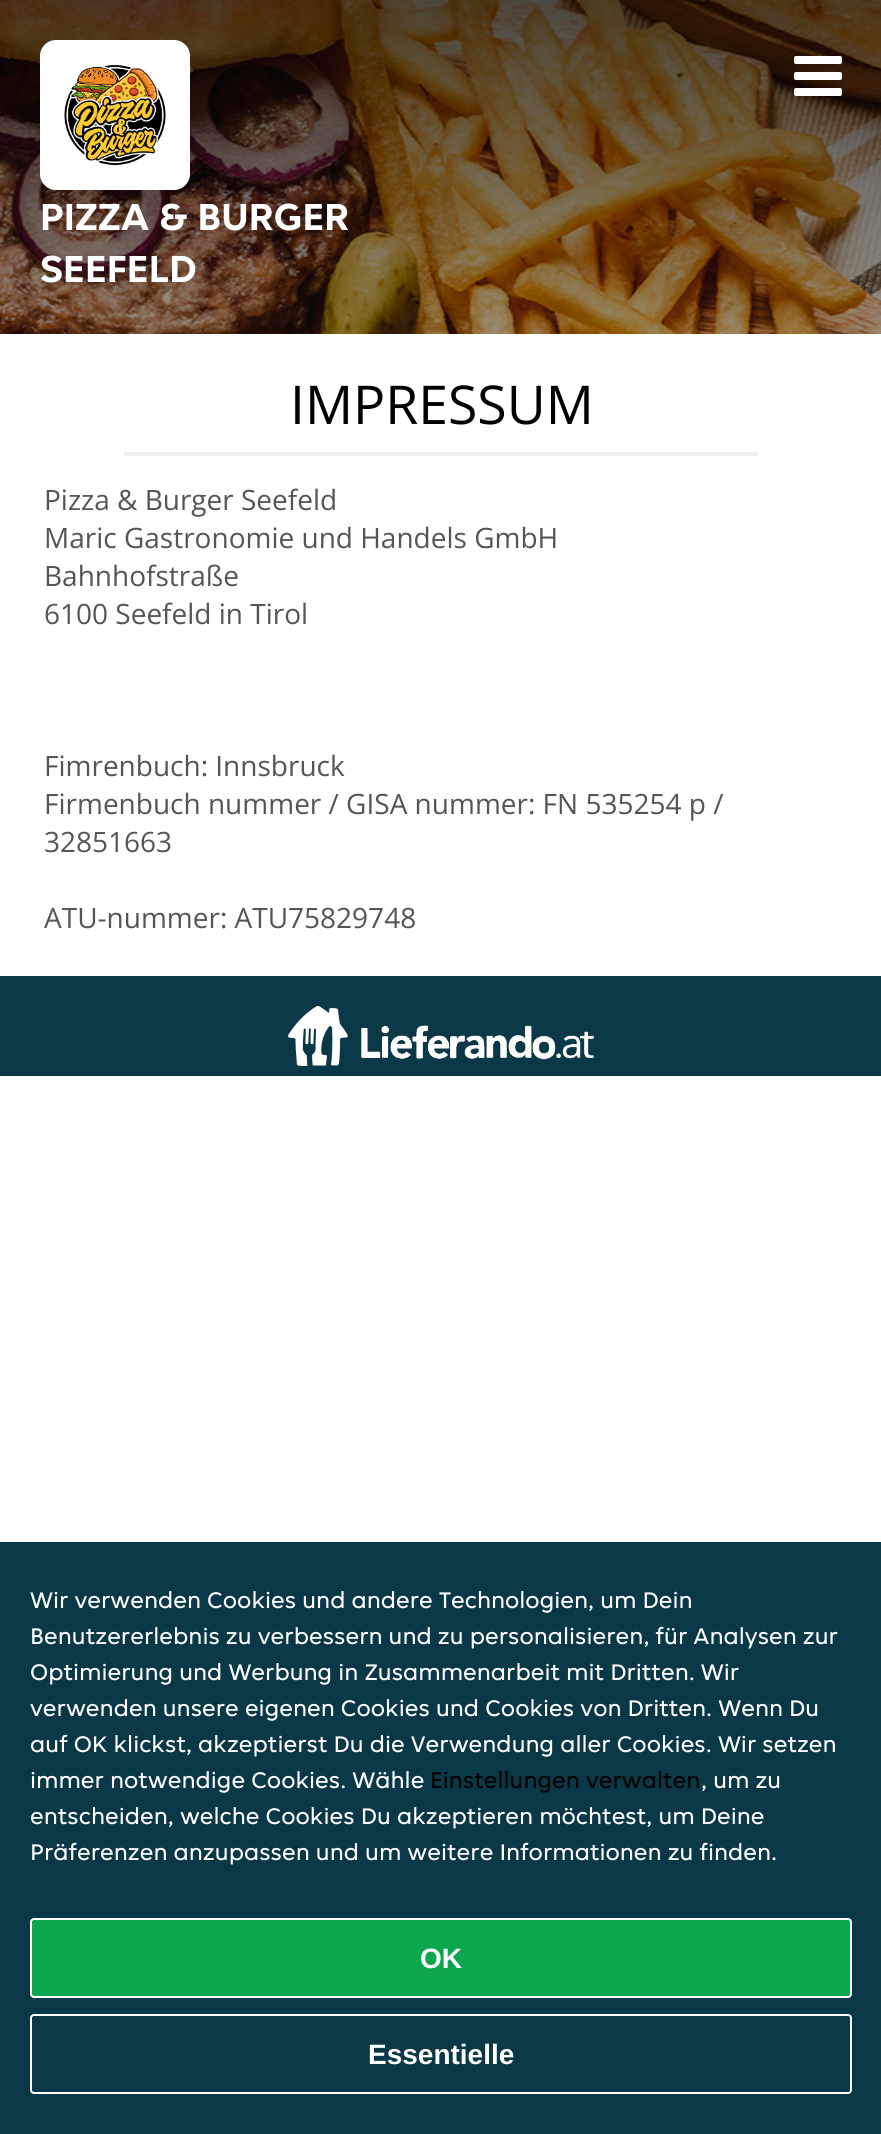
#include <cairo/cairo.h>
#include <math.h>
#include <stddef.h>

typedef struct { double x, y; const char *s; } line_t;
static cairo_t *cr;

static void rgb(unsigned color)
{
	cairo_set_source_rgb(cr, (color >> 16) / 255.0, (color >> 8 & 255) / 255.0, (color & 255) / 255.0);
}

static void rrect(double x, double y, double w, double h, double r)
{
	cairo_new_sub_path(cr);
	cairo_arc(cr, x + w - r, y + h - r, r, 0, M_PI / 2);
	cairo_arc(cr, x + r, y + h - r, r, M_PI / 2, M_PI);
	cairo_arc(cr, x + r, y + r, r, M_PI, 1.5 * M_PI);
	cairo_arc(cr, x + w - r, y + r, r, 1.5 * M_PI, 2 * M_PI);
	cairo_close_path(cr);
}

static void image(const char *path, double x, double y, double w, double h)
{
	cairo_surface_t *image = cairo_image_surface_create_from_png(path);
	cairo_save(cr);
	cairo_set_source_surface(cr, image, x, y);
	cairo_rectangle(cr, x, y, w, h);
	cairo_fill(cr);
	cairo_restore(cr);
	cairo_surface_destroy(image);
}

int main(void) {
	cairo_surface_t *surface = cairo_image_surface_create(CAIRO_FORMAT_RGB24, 881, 2134);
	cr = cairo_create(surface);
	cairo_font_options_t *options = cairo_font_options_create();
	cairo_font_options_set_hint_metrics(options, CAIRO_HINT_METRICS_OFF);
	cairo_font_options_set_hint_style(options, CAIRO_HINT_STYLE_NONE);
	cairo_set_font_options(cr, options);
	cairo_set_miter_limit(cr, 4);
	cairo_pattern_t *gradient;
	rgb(0xffffff);
	cairo_paint(cr);
	image("img/1.png", 0, 0, 881, 334);
	gradient = cairo_pattern_create_linear(441, 0, 441, 1000);
	cairo_pattern_add_color_stop_rgba(gradient, 0, 0, 0, 0, 0.7);
	cairo_pattern_add_color_stop_rgba(gradient, 0.33, 0, 0, 0, 0.4);
	cairo_pattern_add_color_stop_rgba(gradient, 0.67, 0, 0, 0, 0.2);
	cairo_pattern_add_color_stop_rgba(gradient, 1, 0, 0, 0, 0);
	cairo_set_source(cr, gradient);
	cairo_pattern_destroy(gradient);
	cairo_rectangle(cr, 0, 0, 881, 334);
	cairo_fill(cr);
	image("img/2.png", 794, 56, 48, 40);
	rgb(0xffffff);
	rrect(40, 40, 150, 150, 16);
	cairo_fill(cr);
	image("img/3.png", 64, 64, 102, 102);
	rgb(0xeeeeee);
	cairo_rectangle(cr, 124, 452, 634, 4);
	cairo_fill(cr);
	rgb(0x0a3847);
	cairo_rectangle(cr, 0, 976, 881, 100);
	cairo_fill(cr);
	image("img/4.png", 288, 1006, 306, 60);
	cairo_rectangle(cr, 0, 1542, 881, 592);
	cairo_fill(cr);
	rgb(0x0ca64f);
	rrect(31, 1919, 820, 78, 3);
	cairo_fill_preserve(cr);
	rgb(0xffffff);
	cairo_stroke(cr);
	rrect(31, 2015, 820, 78, 3);
	cairo_stroke(cr);
	cairo_select_font_face(cr, "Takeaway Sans", CAIRO_FONT_SLANT_NORMAL, CAIRO_FONT_WEIGHT_BOLD);
	cairo_set_font_size(cr, 40);
	cairo_move_to(cr, 40, 230);
	cairo_show_text(cr, "PIZZA & BURGER");
	cairo_move_to(cr, 40, 282);
	cairo_show_text(cr, "SEEFELD");
	cairo_select_font_face(cr, "Open Sans", CAIRO_FONT_SLANT_NORMAL, CAIRO_FONT_WEIGHT_NORMAL);
	cairo_set_font_size(cr, 53.5);
	rgb(0x000000);
	cairo_move_to(cr, 290, 424);
	cairo_show_text(cr, "IMPRESSUM");
	cairo_set_font_size(cr, 28);
	rgb(0x555555);
	{
		static const line_t items[] = {
			{44, 510, "Pizza & Burger Seefeld"},
			{44, 548, "Maric Gastronomie und Handels GmbH"},
			{44, 586, "Bahnhofstraße"},
			{44, 624, "6100 Seefeld in Tirol"},
			{44, 776, "Fimrenbuch: Innsbruck"},
			{44, 814, "Firmenbuch nummer / GISA nummer: FN 535254 p /"},
			{44, 852, "32851663"},
			{44, 928, "ATU-nummer: ATU75829748"},
		};
		for (size_t i = 0; i < sizeof items / sizeof *items; i++) {
			cairo_move_to(cr, items[i].x, items[i].y);
			cairo_show_text(cr, items[i].s);
		}
	}
	cairo_select_font_face(cr, "Takeaway Sans", CAIRO_FONT_SLANT_NORMAL, CAIRO_FONT_WEIGHT_NORMAL);
	cairo_set_font_size(cr, 24);
	rgb(0xffffff);
	{
		static const line_t items[] = {
			{30, 1608, "Wir verwenden Cookies und andere Technologien, um Dein"},
			{30, 1644, "Benutzererlebnis zu verbessern und zu personalisieren, für Analysen zur"},
			{30, 1680, "Optimierung und Werbung in Zusammenarbeit mit Dritten. Wir"},
			{30, 1716, "verwenden unsere eigenen Cookies und Cookies von Dritten. Wenn Du"},
			{30, 1752, "auf OK klickst, akzeptierst Du die Verwendung aller Cookies. Wir setzen"},
			{30, 1788, "immer notwendige Cookies. Wähle"},
		};
		for (size_t i = 0; i < sizeof items / sizeof *items; i++) {
			cairo_move_to(cr, items[i].x, items[i].y);
			cairo_show_text(cr, items[i].s);
		}
	}
	rgb(0x000000);
	cairo_move_to(cr, 430, 1788);
	cairo_show_text(cr, "Einstellungen verwalten");
	rgb(0xffffff);
	{
		static const line_t items[] = {
			{701, 1788, ", um zu"},
			{30, 1824, "entscheiden, welche Cookies Du akzeptieren möchtest, um Deine"},
			{30, 1860, "Präferenzen anzupassen und um weitere Informationen zu finden."},
		};
		for (size_t i = 0; i < sizeof items / sizeof *items; i++) {
			cairo_move_to(cr, items[i].x, items[i].y);
			cairo_show_text(cr, items[i].s);
		}
	}
	cairo_select_font_face(cr, "Liberation Sans", CAIRO_FONT_SLANT_NORMAL, CAIRO_FONT_WEIGHT_BOLD);
	cairo_set_font_size(cr, 28);
	cairo_move_to(cr, 420, 1968);
	cairo_show_text(cr, "OK");
	cairo_move_to(cr, 368, 2064);
	cairo_show_text(cr, "Essentielle");
	cairo_surface_write_to_png(surface, "page.png");
	cairo_font_options_destroy(options);
	cairo_destroy(cr);
	cairo_surface_destroy(surface);
	return 0;
}
